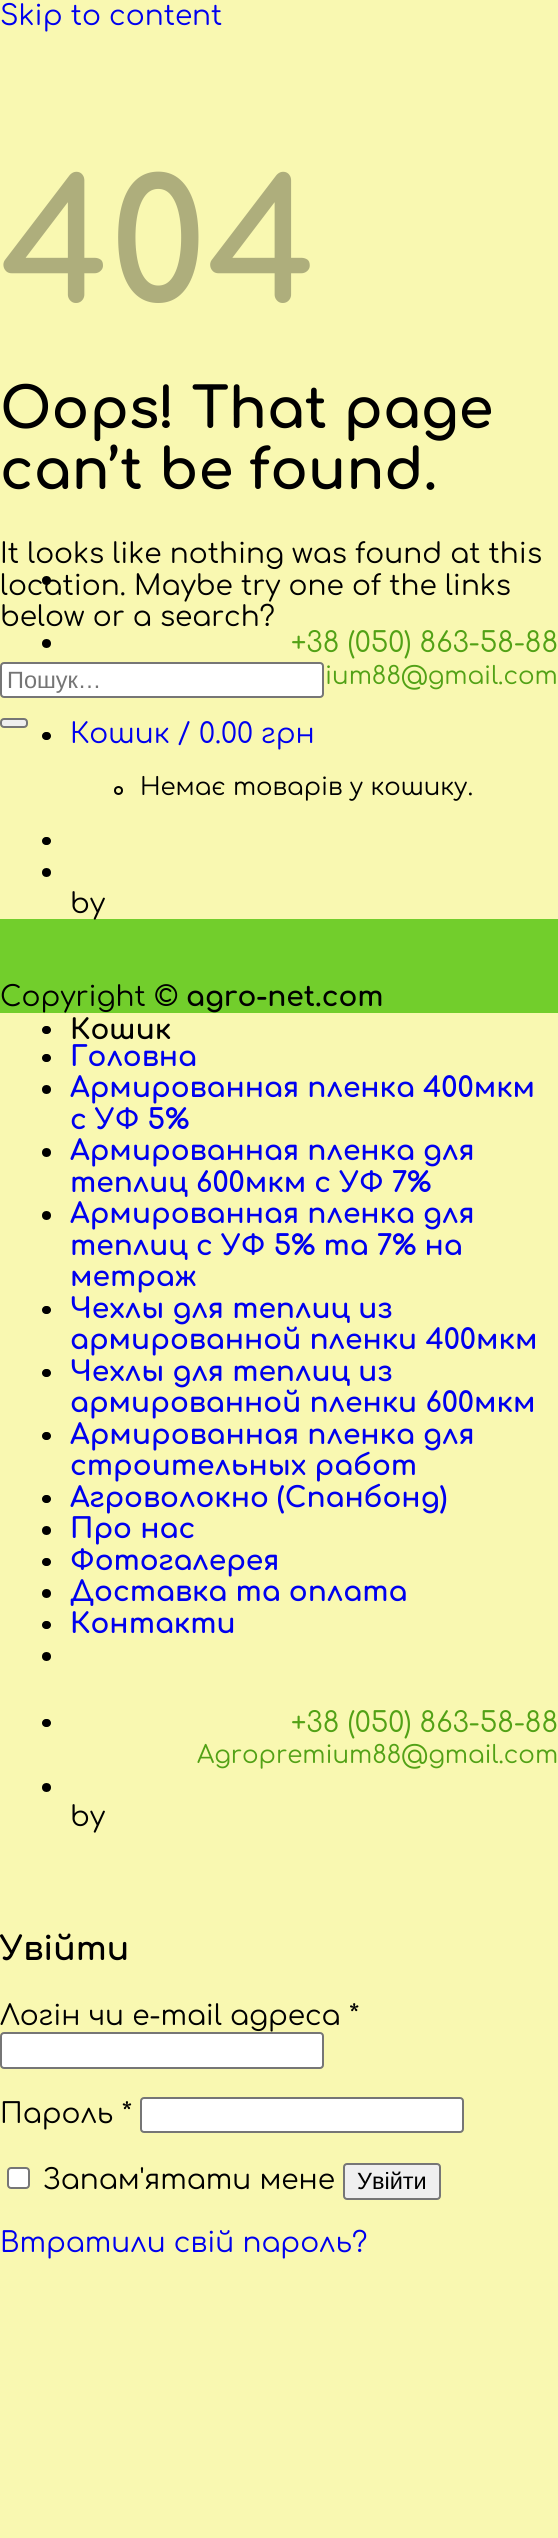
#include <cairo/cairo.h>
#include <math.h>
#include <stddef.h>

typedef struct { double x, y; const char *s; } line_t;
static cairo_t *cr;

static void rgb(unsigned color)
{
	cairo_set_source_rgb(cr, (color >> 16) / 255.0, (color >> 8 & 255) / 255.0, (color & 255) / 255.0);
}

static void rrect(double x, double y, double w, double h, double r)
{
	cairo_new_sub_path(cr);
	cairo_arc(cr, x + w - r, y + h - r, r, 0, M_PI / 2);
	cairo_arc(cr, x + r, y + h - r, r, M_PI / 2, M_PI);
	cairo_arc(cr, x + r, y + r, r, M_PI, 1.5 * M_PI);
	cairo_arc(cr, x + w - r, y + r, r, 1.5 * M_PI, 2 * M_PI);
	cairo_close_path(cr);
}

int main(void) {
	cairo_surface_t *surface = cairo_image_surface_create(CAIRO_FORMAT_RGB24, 558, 2538);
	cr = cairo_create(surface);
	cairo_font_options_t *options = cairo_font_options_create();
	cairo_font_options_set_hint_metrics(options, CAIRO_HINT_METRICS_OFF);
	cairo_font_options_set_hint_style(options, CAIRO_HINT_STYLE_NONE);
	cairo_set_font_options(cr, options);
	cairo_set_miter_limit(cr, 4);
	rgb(0xf9f8b1);
	cairo_paint(cr);
	rgb(0xffffff);
	rrect(1, 663, 322, 34, 3);
	cairo_fill_preserve(cr);
	rgb(0x767676);
	cairo_stroke(cr);
	rgb(0xefefef);
	rrect(1, 719, 26, 8, 3);
	cairo_fill_preserve(cr);
	rgb(0x767676);
	cairo_stroke(cr);
	rgb(0x000000);
	cairo_arc(cr, 46.5, 580.5, 4.5, 0, 2 * M_PI);
	cairo_fill(cr);
	cairo_arc(cr, 46.5, 643.5, 4.5, 0, 2 * M_PI);
	cairo_fill(cr);
	rrect(42, 732, 9, 8, 4);
	cairo_fill(cr);
	cairo_arc(cr, 118.5, 790.5, 3.5, 0, 2 * M_PI);
	cairo_stroke(cr);
	rrect(42, 837, 9, 8, 4);
	cairo_fill(cr);
	cairo_arc(cr, 46.5, 872.5, 4.5, 0, 2 * M_PI);
	cairo_fill(cr);
	rrect(42, 1026, 9, 8, 4);
	cairo_fill(cr);
	rgb(0x72ce2c);
	cairo_rectangle(cr, 0, 919, 558, 94);
	cairo_fill(cr);
	rgb(0x000000);
	rrect(42, 1054, 9, 8, 4);
	cairo_fill(cr);
	cairo_arc(cr, 46.5, 1089.5, 4.5, 0, 2 * M_PI);
	cairo_fill(cr);
	cairo_arc(cr, 46.5, 1152.5, 4.5, 0, 2 * M_PI);
	cairo_fill(cr);
	cairo_arc(cr, 46.5, 1215.5, 4.5, 0, 2 * M_PI);
	cairo_fill(cr);
	rrect(42, 1306, 9, 8, 4);
	cairo_fill(cr);
	rrect(42, 1369, 9, 8, 4);
	cairo_fill(cr);
	rrect(42, 1432, 9, 8, 4);
	cairo_fill(cr);
	rrect(42, 1495, 9, 8, 4);
	cairo_fill(cr);
	cairo_arc(cr, 46.5, 1530.5, 4.5, 0, 2 * M_PI);
	cairo_fill(cr);
	rrect(42, 1558, 9, 8, 4);
	cairo_fill(cr);
	cairo_arc(cr, 46.5, 1593.5, 4.5, 0, 2 * M_PI);
	cairo_fill(cr);
	rrect(42, 1621, 9, 8, 4);
	cairo_fill(cr);
	cairo_arc(cr, 46.5, 1656.5, 4.5, 0, 2 * M_PI);
	cairo_fill(cr);
	rrect(42, 1719, 9, 8, 4);
	cairo_fill(cr);
	cairo_arc(cr, 46.5, 1787.5, 4.5, 0, 2 * M_PI);
	cairo_fill(cr);
	rgb(0xffffff);
	rrect(1, 2033, 322, 35, 3);
	cairo_fill_preserve(cr);
	rgb(0x767676);
	cairo_stroke(cr);
	rgb(0xffffff);
	rrect(141, 2098, 322, 34, 3);
	cairo_fill_preserve(cr);
	rgb(0x767676);
	cairo_stroke(cr);
	rgb(0xffffff);
	rrect(8, 2168, 21, 20, 3);
	cairo_fill_preserve(cr);
	rgb(0x767676);
	cairo_stroke(cr);
	rgb(0xefefef);
	rrect(344, 2164, 96, 35, 3);
	cairo_fill_preserve(cr);
	rgb(0x767676);
	cairo_stroke(cr);
	cairo_select_font_face(cr, "Comfortaa", CAIRO_FONT_SLANT_NORMAL, CAIRO_FONT_WEIGHT_NORMAL);
	cairo_set_font_size(cr, 28);
	rgb(0x0000ee);
	cairo_move_to(cr, 0, 25);
	cairo_show_text(cr, "Skip to content");
	cairo_select_font_face(cr, "Comfortaa", CAIRO_FONT_SLANT_NORMAL, CAIRO_FONT_WEIGHT_BOLD);
	cairo_set_font_size(cr, 168);
	rgb(0xaeae7c);
	cairo_move_to(cr, 0, 303);
	cairo_show_text(cr, "404");
	cairo_set_font_size(cr, 56);
	rgb(0x000000);
	cairo_move_to(cr, 0, 428);
	cairo_show_text(cr, "Oops! That page");
	cairo_move_to(cr, 0, 489);
	cairo_show_text(cr, "can’t be found.");
	cairo_select_font_face(cr, "Comfortaa", CAIRO_FONT_SLANT_NORMAL, CAIRO_FONT_WEIGHT_NORMAL);
	cairo_set_font_size(cr, 28);
	{
		static const line_t items[] = {
			{0, 563, "It looks like nothing was found at this"},
			{0, 595, "location. Maybe try one of the links"},
			{0, 626, "below or a search?"},
		};
		for (size_t i = 0; i < sizeof items / sizeof *items; i++) {
			cairo_move_to(cr, items[i].x, items[i].y);
			cairo_show_text(cr, items[i].s);
		}
	}
	cairo_select_font_face(cr, "Liberation Sans", CAIRO_FONT_SLANT_NORMAL, CAIRO_FONT_WEIGHT_NORMAL);
	cairo_set_font_size(cr, 23.5);
	rgb(0x757575);
	cairo_move_to(cr, 7, 688);
	cairo_show_text(cr, "Пошук…");
	cairo_select_font_face(cr, "Comfortaa", CAIRO_FONT_SLANT_NORMAL, CAIRO_FONT_WEIGHT_NORMAL);
	cairo_set_font_size(cr, 28);
	rgb(0x52a116);
	cairo_move_to(cr, 291, 652);
	cairo_show_text(cr, "+38 (050) 863-58-88");
	cairo_set_font_size(cr, 24.5);
	cairo_move_to(cr, 325, 684);
	cairo_show_text(cr, "ium88@gmail.com");
	cairo_set_font_size(cr, 28);
	rgb(0x0000ee);
	cairo_move_to(cr, 70, 743);
	cairo_show_text(cr, "Кошик / 0.00 грн");
	cairo_set_font_size(cr, 24.4);
	rgb(0x000000);
	cairo_move_to(cr, 140, 795);
	cairo_show_text(cr, "Немає товарів у кошику.");
	cairo_set_font_size(cr, 28);
	cairo_move_to(cr, 70, 913);
	cairo_show_text(cr, "by");
	cairo_select_font_face(cr, "Comfortaa", CAIRO_FONT_SLANT_NORMAL, CAIRO_FONT_WEIGHT_BOLD);
	cairo_move_to(cr, 70, 1039);
	cairo_show_text(cr, "Кошик");
	cairo_select_font_face(cr, "Comfortaa", CAIRO_FONT_SLANT_NORMAL, CAIRO_FONT_WEIGHT_NORMAL);
	cairo_move_to(cr, 0, 1006);
	cairo_show_text(cr, "Copyright ©");
	cairo_select_font_face(cr, "Comfortaa", CAIRO_FONT_SLANT_NORMAL, CAIRO_FONT_WEIGHT_BOLD);
	cairo_move_to(cr, 186, 1006);
	cairo_show_text(cr, "agro-net.com");
	rgb(0x0000ee);
	{
		static const line_t items[] = {
			{70, 1066, "Головна"},
			{70, 1097, "Армированная пленка 400мкм"},
			{70, 1129, "с УФ 5%"},
			{70, 1160, "Армированная пленка для"},
			{70, 1192, "теплиц 600мкм с УФ 7%"},
			{70, 1223, "Армированная пленка для"},
			{70, 1255, "теплиц с УФ 5% та 7% на"},
			{70, 1286, "метраж"},
			{70, 1318, "Чехлы для теплиц из"},
			{70, 1349, "армированной пленки 400мкм"},
			{70, 1381, "Чехлы для теплиц из"},
			{70, 1412, "армированной пленки 600мкм"},
			{70, 1444, "Армированная пленка для"},
			{70, 1475, "строительных работ"},
			{70, 1507, "Агроволокно (Спанбонд)"},
			{70, 1538, "Про нас"},
			{70, 1570, "Фотогалерея"},
			{70, 1601, "Доставка та оплата"},
			{70, 1633, "Контакти"},
		};
		for (size_t i = 0; i < sizeof items / sizeof *items; i++) {
			cairo_move_to(cr, items[i].x, items[i].y);
			cairo_show_text(cr, items[i].s);
		}
	}
	cairo_select_font_face(cr, "Comfortaa", CAIRO_FONT_SLANT_NORMAL, CAIRO_FONT_WEIGHT_NORMAL);
	rgb(0x52a116);
	cairo_move_to(cr, 291, 1732);
	cairo_show_text(cr, "+38 (050) 863-58-88");
	cairo_set_font_size(cr, 24.5);
	cairo_move_to(cr, 197, 1763);
	cairo_show_text(cr, "Agropremium88@gmail.com");
	cairo_set_font_size(cr, 28);
	rgb(0x000000);
	cairo_move_to(cr, 70, 1826);
	cairo_show_text(cr, "by");
	cairo_select_font_face(cr, "Comfortaa", CAIRO_FONT_SLANT_NORMAL, CAIRO_FONT_WEIGHT_BOLD);
	cairo_set_font_size(cr, 33);
	cairo_move_to(cr, 0, 1960);
	cairo_show_text(cr, "Увійти");
	cairo_select_font_face(cr, "Comfortaa", CAIRO_FONT_SLANT_NORMAL, CAIRO_FONT_WEIGHT_NORMAL);
	cairo_set_font_size(cr, 28);
	{
		static const line_t items[] = {
			{0, 2025, "Логін чи e-mail адреса *"},
			{0, 2123, "Пароль *"},
			{43, 2189, "Запам'ятати мене"},
		};
		for (size_t i = 0; i < sizeof items / sizeof *items; i++) {
			cairo_move_to(cr, items[i].x, items[i].y);
			cairo_show_text(cr, items[i].s);
		}
	}
	cairo_select_font_face(cr, "Liberation Sans", CAIRO_FONT_SLANT_NORMAL, CAIRO_FONT_WEIGHT_NORMAL);
	cairo_set_font_size(cr, 23.5);
	cairo_move_to(cr, 357, 2189);
	cairo_show_text(cr, "Увійти");
	cairo_select_font_face(cr, "Comfortaa", CAIRO_FONT_SLANT_NORMAL, CAIRO_FONT_WEIGHT_NORMAL);
	cairo_set_font_size(cr, 28);
	rgb(0x0000ee);
	cairo_move_to(cr, 0, 2252);
	cairo_show_text(cr, "Втратили свій пароль?");
	cairo_surface_write_to_png(surface, "page.png");
	cairo_font_options_destroy(options);
	cairo_destroy(cr);
	cairo_surface_destroy(surface);
	return 0;
}
